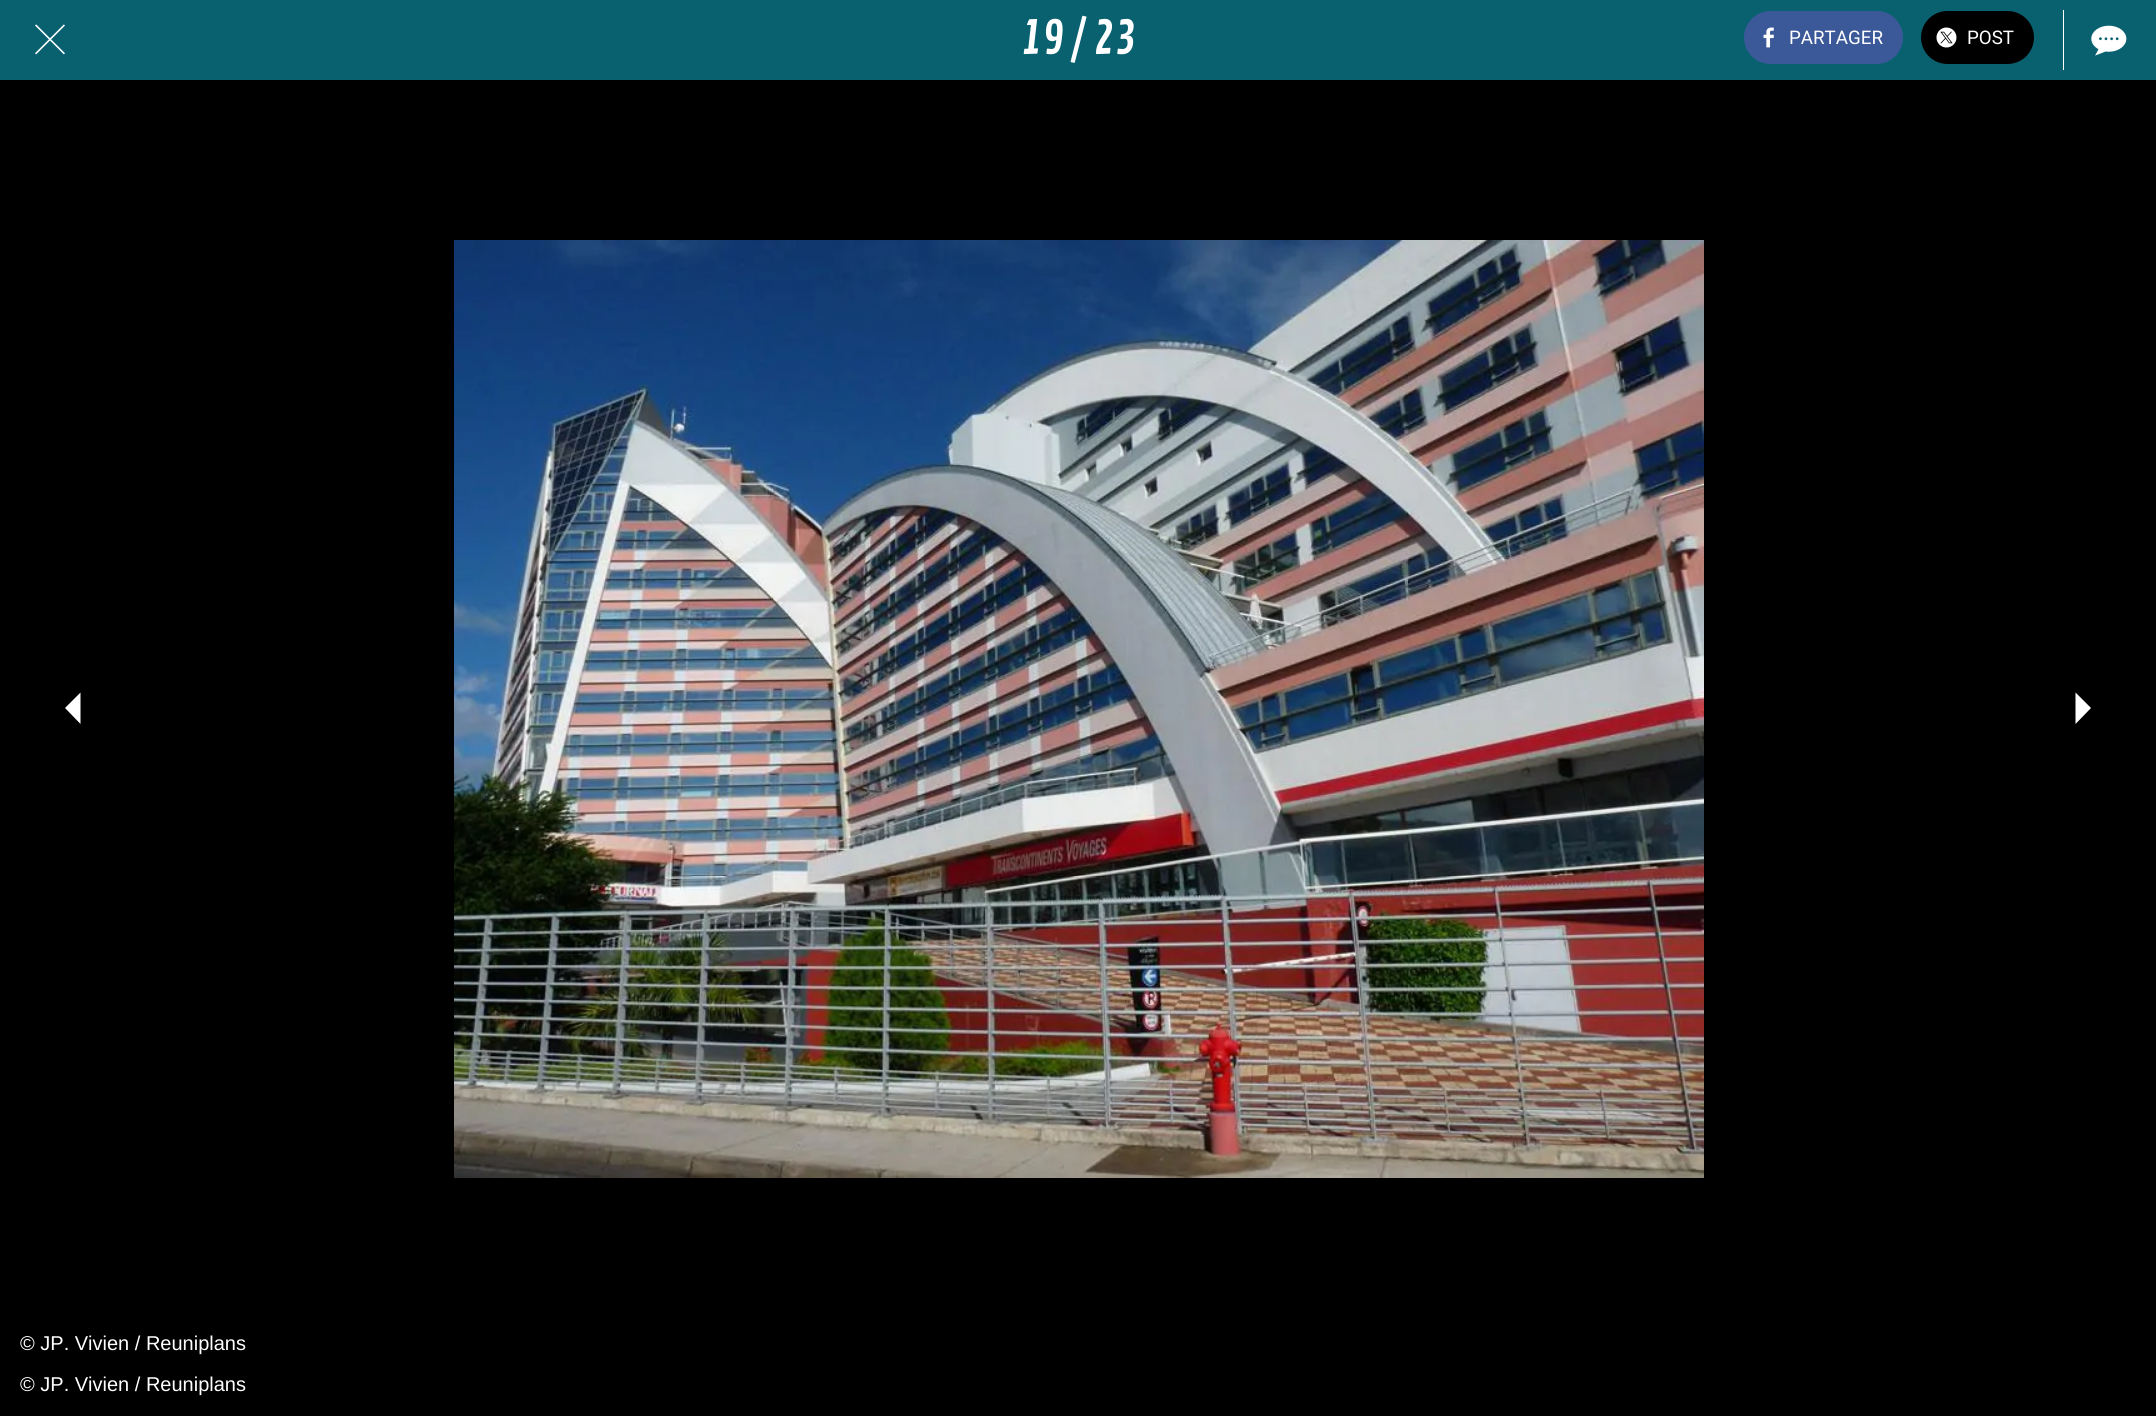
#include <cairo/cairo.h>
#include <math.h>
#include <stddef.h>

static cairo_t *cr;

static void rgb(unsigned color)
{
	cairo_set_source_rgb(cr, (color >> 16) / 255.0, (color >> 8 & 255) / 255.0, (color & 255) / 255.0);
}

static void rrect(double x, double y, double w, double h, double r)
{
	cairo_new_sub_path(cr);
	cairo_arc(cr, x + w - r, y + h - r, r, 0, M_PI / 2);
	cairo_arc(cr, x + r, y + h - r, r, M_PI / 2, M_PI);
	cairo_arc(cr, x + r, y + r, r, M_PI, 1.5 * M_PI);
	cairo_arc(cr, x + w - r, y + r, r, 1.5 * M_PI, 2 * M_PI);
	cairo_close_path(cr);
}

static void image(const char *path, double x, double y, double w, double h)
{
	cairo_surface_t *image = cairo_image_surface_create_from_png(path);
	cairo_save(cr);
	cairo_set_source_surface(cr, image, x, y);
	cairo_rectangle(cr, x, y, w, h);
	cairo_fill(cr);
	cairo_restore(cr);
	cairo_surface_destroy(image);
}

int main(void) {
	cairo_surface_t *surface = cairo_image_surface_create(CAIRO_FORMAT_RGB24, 2156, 1416);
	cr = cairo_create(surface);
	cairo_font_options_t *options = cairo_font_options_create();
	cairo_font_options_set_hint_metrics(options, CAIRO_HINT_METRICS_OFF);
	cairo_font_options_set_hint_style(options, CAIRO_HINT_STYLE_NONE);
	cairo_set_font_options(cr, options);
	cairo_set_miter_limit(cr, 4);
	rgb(0x000000);
	cairo_paint(cr);
	rgb(0x096170);
	cairo_rectangle(cr, 0, 0, 2156, 80);
	cairo_fill(cr);
	image("img/1.png", 35, 24, 30, 31);
	rgb(0x3b5999);
	rrect(1744, 11, 159, 53, 26.5);
	cairo_fill(cr);
	image("img/2.png", 1763, 27, 11, 21);
	rgb(0xffffff);
	cairo_rectangle(cr, 2063, 10, 1, 60);
	cairo_fill(cr);
	rgb(0x000000);
	rrect(1921, 11, 113, 53, 26.5);
	cairo_fill(cr);
	image("img/3.png", 1936, 27, 21, 21);
	image("img/4.png", 2091, 25, 36, 31);
	image("img/5.png", 454, 240, 1250, 938);
	rgb(0xffffff);
	cairo_new_path(cr);
	cairo_move_to(cr, 80.5, 692.5);
	cairo_line_to(cr, 65, 708);
	cairo_line_to(cr, 80.5, 724);
	cairo_close_path(cr);
	cairo_fill(cr);
	cairo_new_path(cr);
	cairo_move_to(cr, 2075.5, 724);
	cairo_line_to(cr, 2091, 708);
	cairo_line_to(cr, 2075.5, 692.5);
	cairo_line_to(cr, 2075.5, 723.5);
	cairo_close_path(cr);
	cairo_fill(cr);
	cairo_select_font_face(cr, "Contrail One", CAIRO_FONT_SLANT_NORMAL, CAIRO_FONT_WEIGHT_NORMAL);
	cairo_set_font_size(cr, 45);
	cairo_move_to(cr, 1021, 54);
	cairo_show_text(cr, "19 / 23");
	cairo_select_font_face(cr, "Roboto", CAIRO_FONT_SLANT_NORMAL, CAIRO_FONT_WEIGHT_NORMAL);
	cairo_set_font_size(cr, 18.75);
	cairo_move_to(cr, 1789, 44);
	cairo_show_text(cr, "PARTAGER");
	cairo_move_to(cr, 1967, 44);
	cairo_show_text(cr, "POST");
	cairo_select_font_face(cr, "Liberation Sans", CAIRO_FONT_SLANT_NORMAL, CAIRO_FONT_WEIGHT_NORMAL);
	cairo_set_font_size(cr, 20);
	cairo_move_to(cr, 20, 1350);
	cairo_show_text(cr, "© JP. Vivien / Reuniplans");
	cairo_move_to(cr, 20, 1391);
	cairo_show_text(cr, "© JP. Vivien / Reuniplans");
	cairo_surface_write_to_png(surface, "page.png");
	cairo_font_options_destroy(options);
	cairo_destroy(cr);
	cairo_surface_destroy(surface);
	return 0;
}
